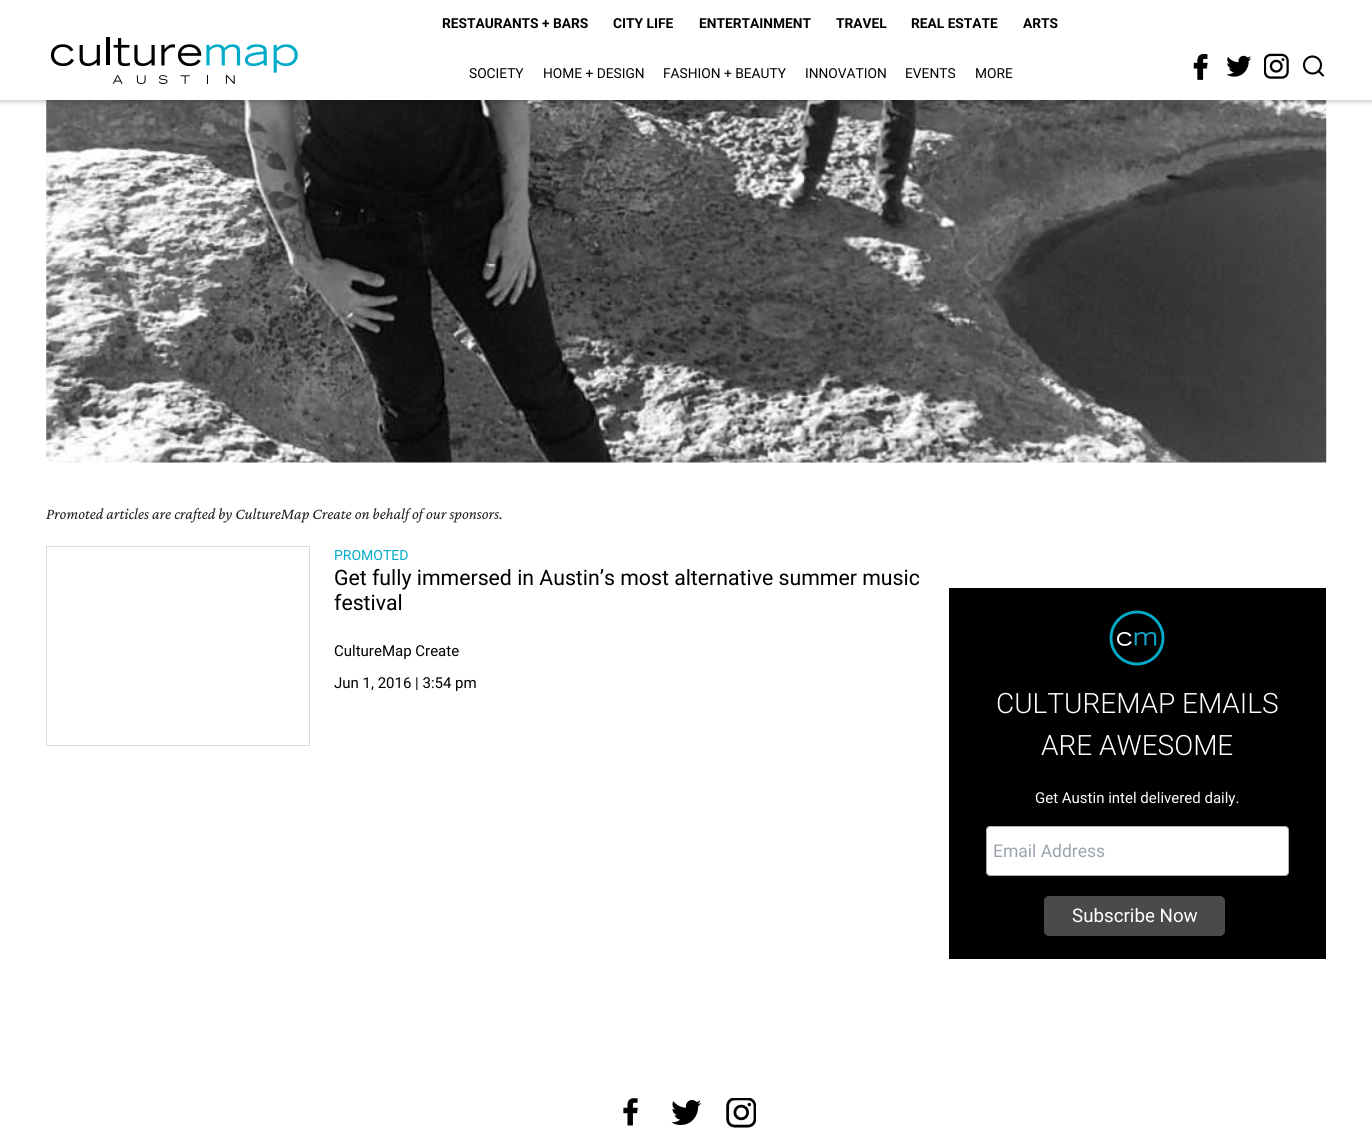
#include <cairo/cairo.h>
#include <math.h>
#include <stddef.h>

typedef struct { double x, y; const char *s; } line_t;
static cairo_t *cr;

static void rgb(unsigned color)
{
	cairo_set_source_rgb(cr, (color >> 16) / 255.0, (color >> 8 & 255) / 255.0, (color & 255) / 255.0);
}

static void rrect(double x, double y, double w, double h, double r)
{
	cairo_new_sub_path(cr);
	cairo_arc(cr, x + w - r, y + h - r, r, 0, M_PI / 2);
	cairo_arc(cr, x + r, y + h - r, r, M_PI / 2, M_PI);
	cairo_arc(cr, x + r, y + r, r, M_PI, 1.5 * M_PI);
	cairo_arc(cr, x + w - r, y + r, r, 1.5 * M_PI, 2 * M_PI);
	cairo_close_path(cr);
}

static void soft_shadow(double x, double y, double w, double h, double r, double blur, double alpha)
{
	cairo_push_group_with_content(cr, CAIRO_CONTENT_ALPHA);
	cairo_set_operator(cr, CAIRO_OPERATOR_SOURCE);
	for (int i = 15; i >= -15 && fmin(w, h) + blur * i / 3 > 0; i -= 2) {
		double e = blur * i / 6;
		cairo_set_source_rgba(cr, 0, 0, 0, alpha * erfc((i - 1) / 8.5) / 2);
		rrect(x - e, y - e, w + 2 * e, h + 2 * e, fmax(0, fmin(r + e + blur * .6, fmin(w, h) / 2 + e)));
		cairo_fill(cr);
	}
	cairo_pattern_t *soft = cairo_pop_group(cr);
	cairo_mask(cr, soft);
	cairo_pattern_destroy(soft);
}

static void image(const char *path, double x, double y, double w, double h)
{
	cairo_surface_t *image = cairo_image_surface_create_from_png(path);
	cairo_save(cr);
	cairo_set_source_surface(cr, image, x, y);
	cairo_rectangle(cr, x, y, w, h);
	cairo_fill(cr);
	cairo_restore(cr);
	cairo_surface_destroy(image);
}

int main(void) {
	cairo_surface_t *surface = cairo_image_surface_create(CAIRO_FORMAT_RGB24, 1372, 1131);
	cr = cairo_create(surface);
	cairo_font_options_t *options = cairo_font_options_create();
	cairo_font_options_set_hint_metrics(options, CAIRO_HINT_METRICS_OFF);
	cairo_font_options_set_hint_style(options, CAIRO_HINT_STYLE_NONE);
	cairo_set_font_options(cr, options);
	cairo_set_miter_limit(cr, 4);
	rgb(0xffffff);
	cairo_paint(cr);
	image("img/5.png", 46, 100, 1281, 363);
	rgb(0x000000);
	soft_shadow(-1, -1, 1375, 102, 0, 3, 0.28);
	rgb(0xffffff);
	cairo_rectangle(cr, 0, 0, 1372, 100);
	cairo_fill(cr);
	image("img/1.png", 50, 37, 248, 47);
	image("img/2.png", 1193, 54, 15, 26);
	image("img/3.png", 1226, 55, 25, 22);
	image("img/4.png", 1264, 53, 25, 26);
	cairo_arc(cr, 1312.5, 65, 8.5, 0, 2 * M_PI);
	rgb(0x000000);
	cairo_set_line_width(cr, 2.1);
	cairo_stroke(cr);
	cairo_new_path(cr);
	cairo_move_to(cr, 1323, 75.5);
	cairo_line_to(cr, 1318.5, 71);
	cairo_set_line_cap(cr, CAIRO_LINE_CAP_ROUND);
	cairo_set_line_join(cr, CAIRO_LINE_JOIN_ROUND);
	cairo_stroke(cr);
	cairo_rectangle(cr, 46.5, 546.5, 263, 199);
	rgb(0xdcdcdc);
	cairo_set_line_width(cr, 1);
	cairo_set_line_cap(cr, CAIRO_LINE_CAP_BUTT);
	cairo_set_line_join(cr, CAIRO_LINE_JOIN_MITER);
	cairo_stroke(cr);
	rgb(0x000000);
	cairo_rectangle(cr, 949, 588, 377, 371);
	cairo_fill(cr);
	image("img/6.png", 1109, 610, 56, 56);
	rgb(0xffffff);
	rrect(986.5, 826.5, 302, 49, 3.5);
	cairo_fill_preserve(cr);
	rgb(0xabb0b2);
	cairo_stroke(cr);
	rgb(0x4a4a4a);
	rrect(1044, 896, 181, 40, 5);
	cairo_fill(cr);
	image("img/7.png", 623, 1098, 15, 28);
	image("img/8.png", 671, 1100, 30, 25);
	image("img/9.png", 726, 1098, 30, 30);
	cairo_select_font_face(cr, "Roboto", CAIRO_FONT_SLANT_NORMAL, CAIRO_FONT_WEIGHT_BOLD);
	cairo_set_font_size(cr, 13.75);
	rgb(0x000000);
	{
		static const line_t items[] = {
			{442, 28, "RESTAURANTS + BARS"},
			{613, 28, "CITY LIFE"},
			{699, 28, "ENTERTAINMENT"},
			{836, 28, "TRAVEL"},
			{911, 28, "REAL ESTATE"},
			{1023, 28, "ARTS"},
		};
		for (size_t i = 0; i < sizeof items / sizeof *items; i++) {
			cairo_move_to(cr, items[i].x, items[i].y);
			cairo_show_text(cr, items[i].s);
		}
	}
	cairo_select_font_face(cr, "Roboto", CAIRO_FONT_SLANT_NORMAL, CAIRO_FONT_WEIGHT_NORMAL);
	{
		static const line_t items[] = {
			{469, 78, "SOCIETY"},
			{543, 78, "HOME + DESIGN"},
			{663, 78, "FASHION + BEAUTY"},
			{805, 78, "INNOVATION"},
			{905, 78, "EVENTS"},
			{975, 78, "MORE"},
		};
		for (size_t i = 0; i < sizeof items / sizeof *items; i++) {
			cairo_move_to(cr, items[i].x, items[i].y);
			cairo_show_text(cr, items[i].s);
		}
	}
	cairo_select_font_face(cr, "Crimson Pro", CAIRO_FONT_SLANT_ITALIC, CAIRO_FONT_WEIGHT_NORMAL);
	cairo_set_font_size(cr, 16);
	rgb(0x222222);
	cairo_move_to(cr, 46, 519);
	cairo_show_text(cr, "Promoted articles are crafted by CultureMap Create on behalf of our sponsors.");
	cairo_select_font_face(cr, "Roboto", CAIRO_FONT_SLANT_NORMAL, CAIRO_FONT_WEIGHT_NORMAL);
	cairo_set_font_size(cr, 14);
	rgb(0x02abc8);
	cairo_move_to(cr, 334, 560);
	cairo_show_text(cr, "PROMOTED");
	cairo_set_font_size(cr, 21.25);
	rgb(0x000000);
	cairo_move_to(cr, 334, 585);
	cairo_show_text(cr, "Get fully immersed in Austin’s most alternative summer music");
	cairo_move_to(cr, 334, 610);
	cairo_show_text(cr, "festival");
	cairo_set_font_size(cr, 15);
	cairo_move_to(cr, 334, 656);
	cairo_show_text(cr, "CultureMap Create");
	cairo_move_to(cr, 334, 688);
	cairo_show_text(cr, "Jun 1, 2016 | 3:54 pm");
	cairo_select_font_face(cr, "Roboto Light", CAIRO_FONT_SLANT_NORMAL, CAIRO_FONT_WEIGHT_NORMAL);
	cairo_set_font_size(cr, 28);
	rgb(0xffffff);
	cairo_move_to(cr, 996, 713);
	cairo_show_text(cr, "CULTUREMAP EMAILS");
	cairo_move_to(cr, 1041, 755);
	cairo_show_text(cr, "ARE AWESOME");
	cairo_select_font_face(cr, "Roboto", CAIRO_FONT_SLANT_NORMAL, CAIRO_FONT_WEIGHT_NORMAL);
	cairo_set_font_size(cr, 15);
	cairo_move_to(cr, 1035, 803);
	cairo_show_text(cr, "Get Austin intel delivered daily.");
	cairo_set_font_size(cr, 17.5);
	rgb(0x9ca3af);
	cairo_move_to(cr, 993, 857);
	cairo_show_text(cr, "Email Address");
	cairo_set_font_size(cr, 18.75);
	rgb(0xffffff);
	cairo_move_to(cr, 1072, 922);
	cairo_show_text(cr, "Subscribe Now");
	cairo_surface_write_to_png(surface, "page.png");
	cairo_font_options_destroy(options);
	cairo_destroy(cr);
	cairo_surface_destroy(surface);
	return 0;
}
